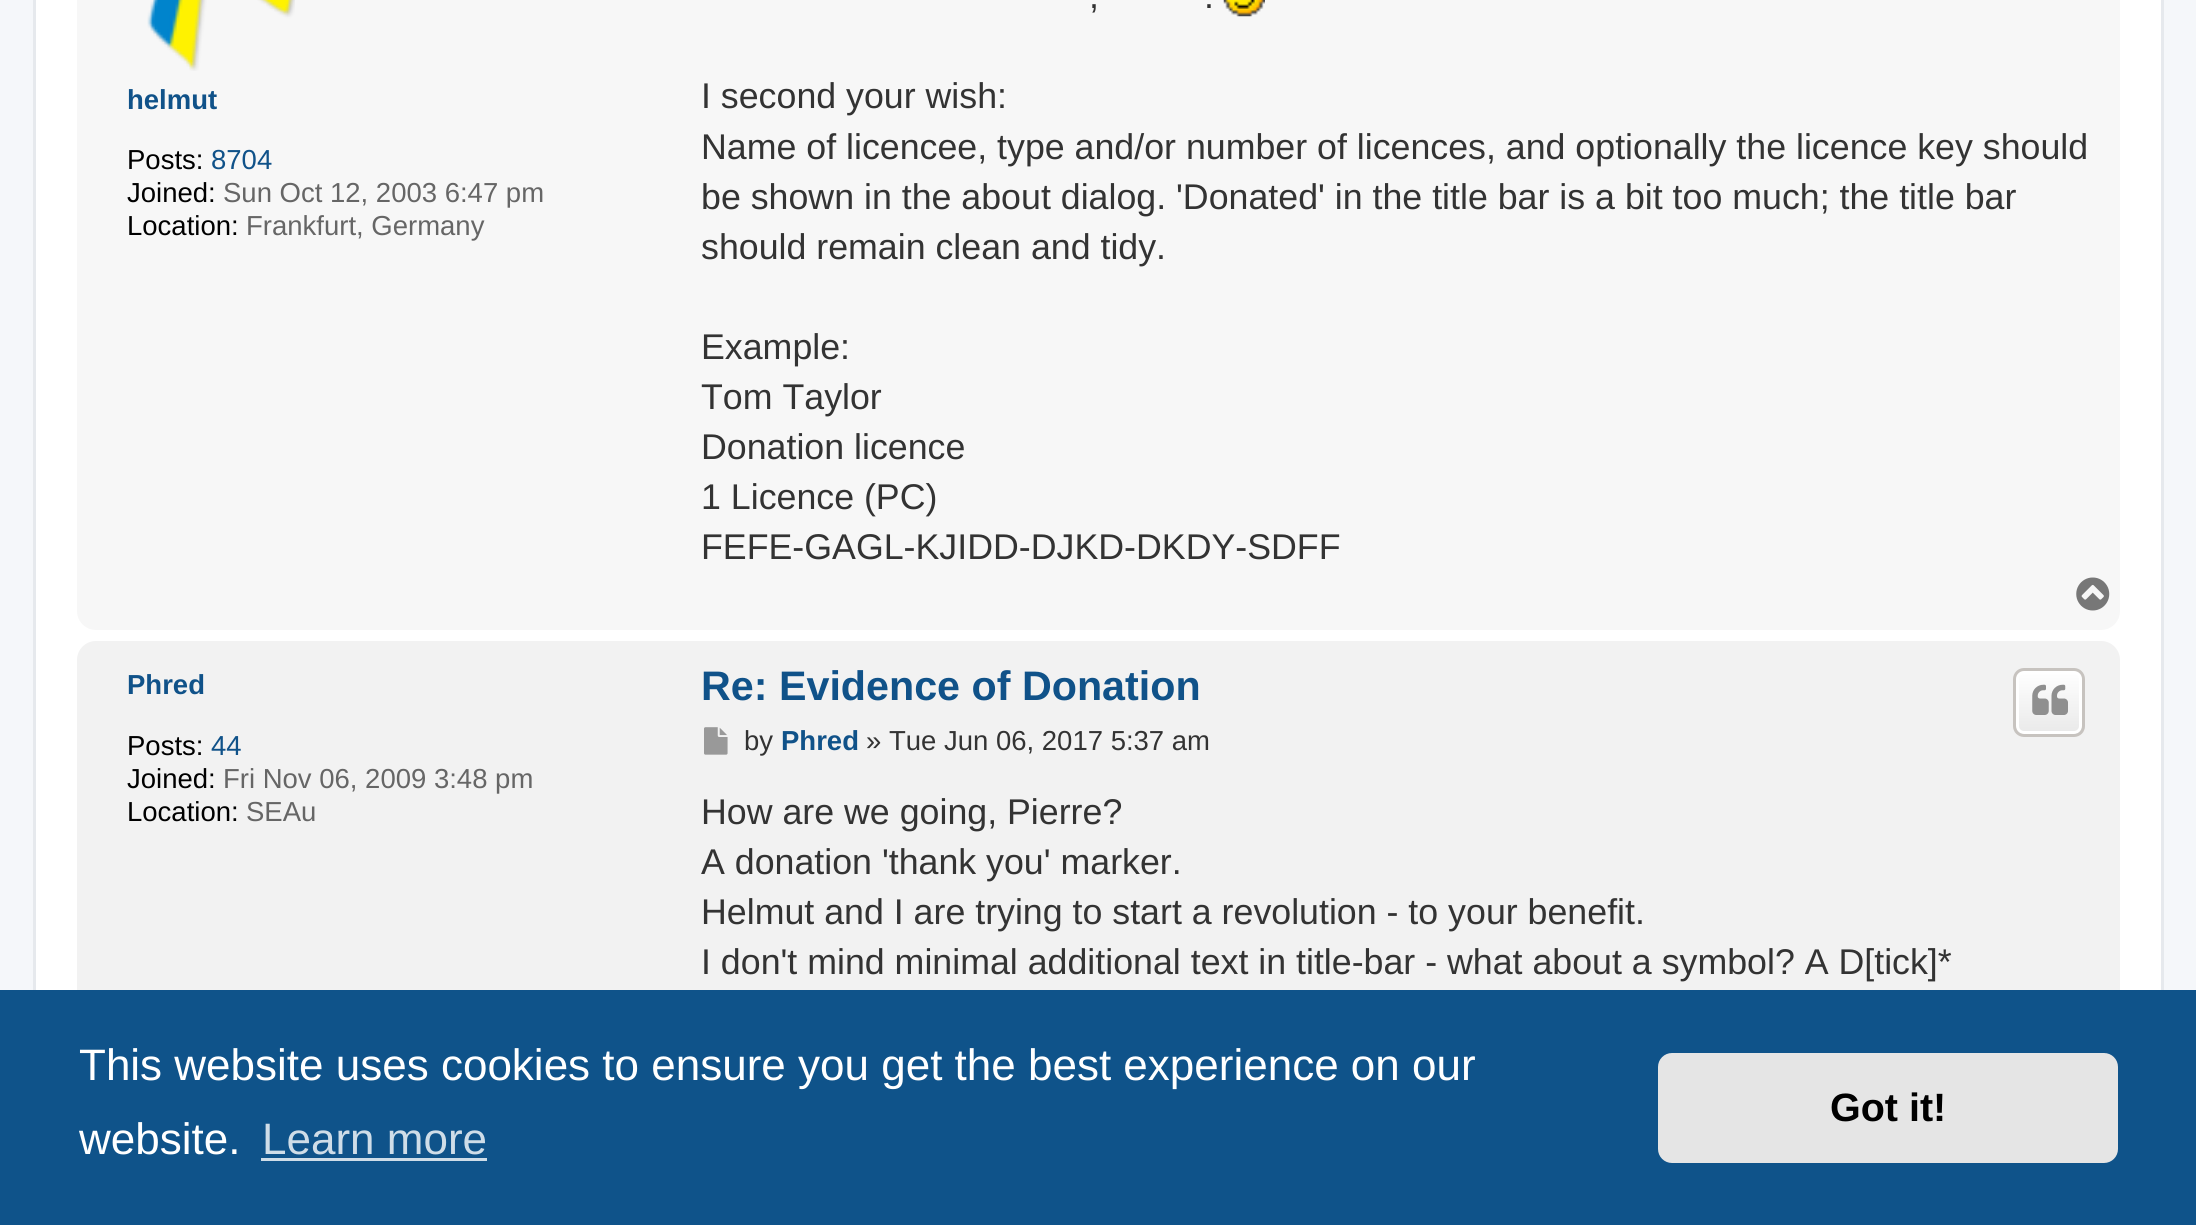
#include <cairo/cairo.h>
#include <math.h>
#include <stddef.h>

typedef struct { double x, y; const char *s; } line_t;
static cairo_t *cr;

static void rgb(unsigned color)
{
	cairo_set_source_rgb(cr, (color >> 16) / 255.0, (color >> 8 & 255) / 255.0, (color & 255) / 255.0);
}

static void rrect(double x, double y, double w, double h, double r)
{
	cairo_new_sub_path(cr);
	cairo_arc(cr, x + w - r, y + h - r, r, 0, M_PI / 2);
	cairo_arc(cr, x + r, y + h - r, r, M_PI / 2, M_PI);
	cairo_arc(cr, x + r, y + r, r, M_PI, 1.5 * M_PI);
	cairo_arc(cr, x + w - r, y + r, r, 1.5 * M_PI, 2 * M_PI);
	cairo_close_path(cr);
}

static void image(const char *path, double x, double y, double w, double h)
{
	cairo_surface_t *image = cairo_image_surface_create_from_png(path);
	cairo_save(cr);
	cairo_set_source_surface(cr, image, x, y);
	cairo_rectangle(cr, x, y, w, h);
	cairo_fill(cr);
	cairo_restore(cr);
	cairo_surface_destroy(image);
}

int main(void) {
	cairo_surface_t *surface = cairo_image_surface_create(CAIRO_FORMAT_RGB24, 2196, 1225);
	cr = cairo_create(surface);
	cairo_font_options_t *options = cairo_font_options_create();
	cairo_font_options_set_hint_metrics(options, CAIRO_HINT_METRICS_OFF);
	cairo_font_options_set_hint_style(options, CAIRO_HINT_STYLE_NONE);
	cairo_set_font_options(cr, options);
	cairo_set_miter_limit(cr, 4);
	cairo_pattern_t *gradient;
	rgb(0xf5f7fa);
	cairo_paint(cr);
	rgb(0xffffff);
	cairo_rectangle(cr, 36, 0, 2125, 990);
	cairo_fill(cr);
	cairo_rectangle(cr, 34.5, -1.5, 2128, 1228);
	rgb(0xe6e9ed);
	cairo_set_line_width(cr, 3);
	cairo_stroke(cr);
	rgb(0xf7f7f7);
	rrect(77, -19, 2043, 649, 19);
	cairo_fill(cr);
	image("img/1.png", 147, 0, 148, 71);
	image("img/2.png", 1223, 0, 42, 17);
	image("img/3.png", 2076, 577, 34, 34);
	rgb(0xf2f2f2);
	rrect(77, 641, 2043, 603, 19);
	cairo_fill(cr);
	cairo_save(cr);
	rrect(2013, 668, 72, 69, 11);
	cairo_clip(cr);
	gradient = cairo_pattern_create_linear(2049, 671, 2049, 734);
	cairo_pattern_add_color_stop_rgba(gradient, 0, 1, 1, 1, 1);
	cairo_pattern_add_color_stop_rgba(gradient, 1, 0.914, 0.914, 0.914, 1);
	cairo_set_source(cr, gradient);
	cairo_pattern_destroy(gradient);
	cairo_rectangle(cr, 2013, 671, 72, 63);
	cairo_fill(cr);
	cairo_restore(cr);
	rrect(2017.5, 672.5, 63, 60, 6.5);
	rgb(0xffffff);
	cairo_stroke(cr);
	rrect(2014.5, 669.5, 69, 66, 9.5);
	rgb(0xc7c3bf);
	cairo_stroke(cr);
	image("img/4.png", 2032, 684, 36, 31);
	image("img/5.png", 704, 727, 24, 28);
	rgb(0x0f538a);
	cairo_rectangle(cr, 0, 990, 2196, 235);
	cairo_fill(cr);
	rgb(0xcfdde8);
	cairo_rectangle(cr, 261, 1158, 226, 3);
	cairo_fill(cr);
	rgb(0xe5e5e5);
	rrect(1658, 1053, 460, 110, 14);
	cairo_fill(cr);
	cairo_select_font_face(cr, "Liberation Sans", CAIRO_FONT_SLANT_NORMAL, CAIRO_FONT_WEIGHT_BOLD);
	cairo_set_font_size(cr, 27.5);
	rgb(0x105289);
	cairo_move_to(cr, 127, 109);
	cairo_show_text(cr, "helmut");
	cairo_select_font_face(cr, "Liberation Sans", CAIRO_FONT_SLANT_NORMAL, CAIRO_FONT_WEIGHT_NORMAL);
	rgb(0x000000);
	cairo_move_to(cr, 127, 169);
	cairo_show_text(cr, "Posts:");
	rgb(0x105289);
	cairo_move_to(cr, 211, 169);
	cairo_show_text(cr, "8704");
	rgb(0x000000);
	cairo_move_to(cr, 127, 202);
	cairo_show_text(cr, "Joined:");
	rgb(0x666666);
	cairo_move_to(cr, 223, 202);
	cairo_show_text(cr, "Sun Oct 12, 2003 6:47 pm");
	rgb(0x000000);
	cairo_move_to(cr, 127, 235);
	cairo_show_text(cr, "Location:");
	rgb(0x666666);
	cairo_move_to(cr, 246, 235);
	cairo_show_text(cr, "Frankfurt, Germany");
	cairo_set_font_size(cr, 35.75);
	rgb(0x333333);
	{
		static const line_t items[] = {
			{1089, 8, ","},
			{1204, 8, "."},
			{701, 108, "I second your wish:"},
			{701, 159, "Name of licencee, type and/or number of licences, and optionally the licence key should"},
			{701, 209, "be shown in the about dialog. 'Donated' in the title bar is a bit too much; the title bar"},
			{701, 259, "should remain clean and tidy."},
			{701, 359, "Example:"},
			{701, 409, "Tom Taylor"},
			{701, 459, "Donation licence"},
			{701, 509, "1 Licence (PC)"},
			{701, 559, "FEFE-GAGL-KJIDD-DJKD-DKDY-SDFF"},
		};
		for (size_t i = 0; i < sizeof items / sizeof *items; i++) {
			cairo_move_to(cr, items[i].x, items[i].y);
			cairo_show_text(cr, items[i].s);
		}
	}
	cairo_select_font_face(cr, "Liberation Sans", CAIRO_FONT_SLANT_NORMAL, CAIRO_FONT_WEIGHT_BOLD);
	cairo_set_font_size(cr, 27.5);
	rgb(0x105289);
	cairo_move_to(cr, 127, 694);
	cairo_show_text(cr, "Phred");
	cairo_select_font_face(cr, "Liberation Sans", CAIRO_FONT_SLANT_NORMAL, CAIRO_FONT_WEIGHT_NORMAL);
	rgb(0x000000);
	cairo_move_to(cr, 127, 755);
	cairo_show_text(cr, "Posts:");
	rgb(0x105289);
	cairo_move_to(cr, 211, 755);
	cairo_show_text(cr, "44");
	rgb(0x000000);
	cairo_move_to(cr, 127, 788);
	cairo_show_text(cr, "Joined:");
	rgb(0x666666);
	cairo_move_to(cr, 223, 788);
	cairo_show_text(cr, "Fri Nov 06, 2009 3:48 pm");
	rgb(0x000000);
	cairo_move_to(cr, 127, 821);
	cairo_show_text(cr, "Location:");
	rgb(0x666666);
	cairo_move_to(cr, 246, 821);
	cairo_show_text(cr, "SEAu");
	cairo_select_font_face(cr, "Liberation Sans", CAIRO_FONT_SLANT_NORMAL, CAIRO_FONT_WEIGHT_BOLD);
	cairo_set_font_size(cr, 41.25);
	rgb(0x105289);
	cairo_move_to(cr, 701, 700);
	cairo_show_text(cr, "Re: Evidence of Donation");
	cairo_select_font_face(cr, "Liberation Sans", CAIRO_FONT_SLANT_NORMAL, CAIRO_FONT_WEIGHT_NORMAL);
	cairo_set_font_size(cr, 27.5);
	rgb(0x333333);
	cairo_move_to(cr, 744, 750);
	cairo_show_text(cr, "by");
	cairo_select_font_face(cr, "Liberation Sans", CAIRO_FONT_SLANT_NORMAL, CAIRO_FONT_WEIGHT_BOLD);
	rgb(0x105289);
	cairo_move_to(cr, 781, 750);
	cairo_show_text(cr, "Phred");
	cairo_select_font_face(cr, "Liberation Sans", CAIRO_FONT_SLANT_NORMAL, CAIRO_FONT_WEIGHT_NORMAL);
	rgb(0x333333);
	cairo_move_to(cr, 866, 750);
	cairo_show_text(cr, "» Tue Jun 06, 2017 5:37 am");
	cairo_set_font_size(cr, 35.75);
	{
		static const line_t items[] = {
			{701, 824, "How are we going, Pierre?"},
			{701, 874, "A donation 'thank you' marker."},
			{701, 924, "Helmut and I are trying to start a revolution - to your benefit."},
			{701, 974, "I don't mind minimal additional text in title-bar - what about a symbol? A D[tick]*"},
		};
		for (size_t i = 0; i < sizeof items / sizeof *items; i++) {
			cairo_move_to(cr, items[i].x, items[i].y);
			cairo_show_text(cr, items[i].s);
		}
	}
	cairo_set_font_size(cr, 44);
	rgb(0xffffff);
	cairo_move_to(cr, 79, 1080);
	cairo_show_text(cr, "This website uses cookies to ensure you get the best experience on our");
	cairo_move_to(cr, 79, 1154);
	cairo_show_text(cr, "website.");
	rgb(0xcfdde8);
	cairo_move_to(cr, 262, 1154);
	cairo_show_text(cr, "Learn more");
	cairo_select_font_face(cr, "Liberation Sans", CAIRO_FONT_SLANT_NORMAL, CAIRO_FONT_WEIGHT_BOLD);
	cairo_set_font_size(cr, 39.5);
	rgb(0x000000);
	cairo_move_to(cr, 1830, 1121);
	cairo_show_text(cr, "Got it!");
	cairo_surface_write_to_png(surface, "page.png");
	cairo_font_options_destroy(options);
	cairo_destroy(cr);
	cairo_surface_destroy(surface);
	return 0;
}
